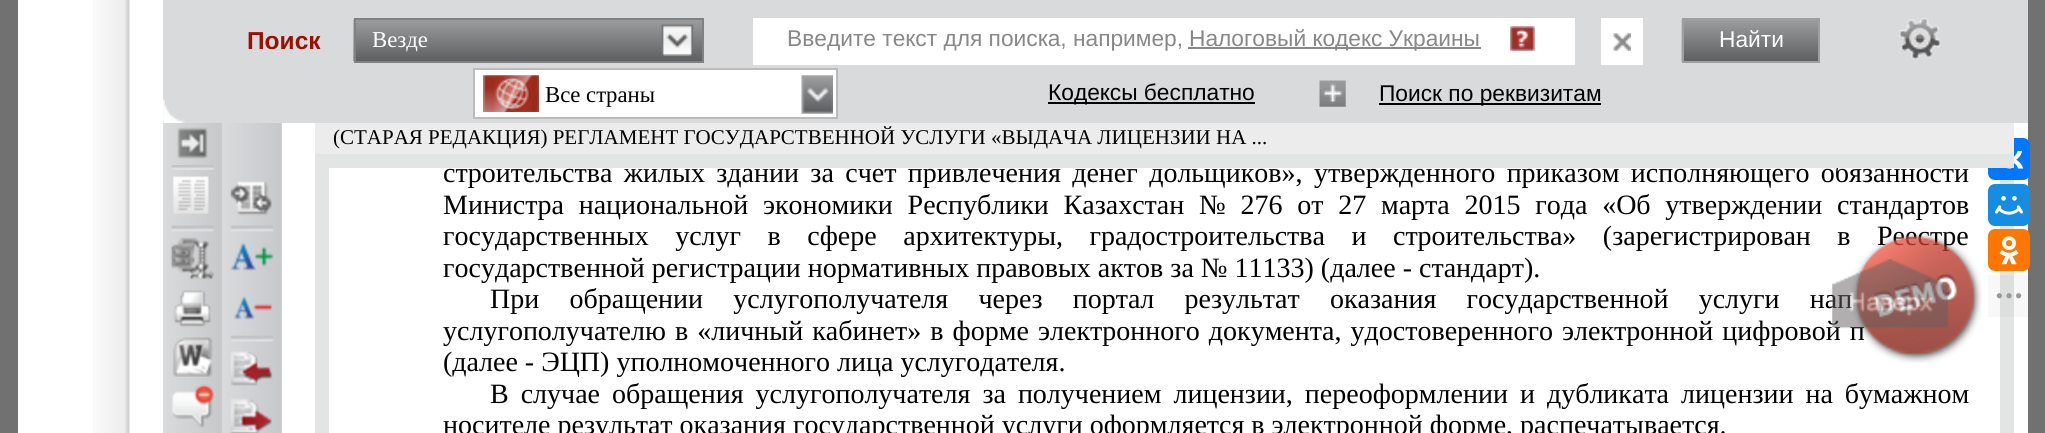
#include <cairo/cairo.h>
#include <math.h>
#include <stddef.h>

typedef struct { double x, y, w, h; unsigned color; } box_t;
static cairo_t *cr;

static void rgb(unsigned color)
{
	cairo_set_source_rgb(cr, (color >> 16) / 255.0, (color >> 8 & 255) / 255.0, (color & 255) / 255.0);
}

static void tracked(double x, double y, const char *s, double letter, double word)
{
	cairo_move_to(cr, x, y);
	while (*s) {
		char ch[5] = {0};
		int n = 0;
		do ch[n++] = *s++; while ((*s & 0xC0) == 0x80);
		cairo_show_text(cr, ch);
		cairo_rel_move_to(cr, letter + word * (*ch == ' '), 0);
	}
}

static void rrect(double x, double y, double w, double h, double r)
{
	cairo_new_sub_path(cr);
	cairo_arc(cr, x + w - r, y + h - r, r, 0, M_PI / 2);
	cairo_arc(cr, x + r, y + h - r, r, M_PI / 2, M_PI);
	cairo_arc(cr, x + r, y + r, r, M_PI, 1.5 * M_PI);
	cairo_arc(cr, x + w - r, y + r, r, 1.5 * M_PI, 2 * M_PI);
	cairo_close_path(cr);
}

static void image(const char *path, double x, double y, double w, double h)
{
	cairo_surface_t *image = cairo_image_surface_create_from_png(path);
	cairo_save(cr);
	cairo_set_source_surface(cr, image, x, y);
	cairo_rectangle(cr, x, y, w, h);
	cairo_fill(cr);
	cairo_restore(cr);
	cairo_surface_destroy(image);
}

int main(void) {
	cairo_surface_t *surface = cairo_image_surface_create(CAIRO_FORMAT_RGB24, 2045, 433);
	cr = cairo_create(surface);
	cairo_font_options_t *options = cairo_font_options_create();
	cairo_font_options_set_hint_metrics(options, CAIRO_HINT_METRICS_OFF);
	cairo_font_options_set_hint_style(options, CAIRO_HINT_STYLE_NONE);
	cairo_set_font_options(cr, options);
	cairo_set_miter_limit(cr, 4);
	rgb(0x727171);
	cairo_paint(cr);
	rgb(0xffffff);
	cairo_rectangle(cr, 18, 0, 2010, 433);
	cairo_fill(cr);
	image("img/1.png", 93, 0, 37, 433);
	rgb(0xd9dadc);
	cairo_rectangle(cr, 163, 0, 1865, 123);
	cairo_fill(cr);
	image("img/2.png", 163, 99, 23, 24);
	image("img/3.png", 353, 19, 349, 43);
	cairo_rectangle(cr, 355, 19, 348, 43);
	rgb(0x808183);
	cairo_stroke(cr);
	image("img/4.png", 661, 24, 33, 32);
	rgb(0xffffff);
	cairo_rectangle(cr, 753, 18, 822, 47);
	cairo_fill(cr);
	rgb(0x888888);
	cairo_rectangle(cr, 1188, 47, 293, 2);
	cairo_fill(cr);
	image("img/5.png", 1510, 26, 25, 25);
	rgb(0xffffff);
	cairo_rectangle(cr, 1601, 18, 42, 47);
	cairo_fill(cr);
	image("img/6.png", 1613, 33, 18, 18);
	image("img/7.png", 1681, 19, 137, 43);
	cairo_rectangle(cr, 1683, 19, 136, 43);
	rgb(0x9e9fa1);
	cairo_stroke(cr);
	rgb(0xffffff);
	cairo_rectangle(cr, 474, 69, 363, 49);
	cairo_fill_preserve(cr);
	rgb(0xbbbbbb);
	cairo_stroke(cr);
	image("img/8.png", 801, 75, 32, 39);
	image("img/9.png", 483, 75, 56, 37);
	rgb(0x000000);
	cairo_rectangle(cr, 1048, 102, 207, 2);
	cairo_fill(cr);
	image("img/10.png", 1319, 80, 27, 27);
	cairo_rectangle(cr, 1379, 103, 222, 2);
	cairo_fill(cr);
	image("img/11.png", 1899, 18, 42, 42);
	image("img/12.png", 163, 123, 59, 310);
	image("img/13.png", 177, 127, 31, 32);
	image("img/14.png", 171, 165, 43, 5);
	image("img/15.png", 172, 176, 37, 38);
	image("img/16.png", 171, 225, 43, 7);
	image("img/17.png", 170, 237, 44, 43);
	image("img/18.png", 173, 290, 38, 37);
	image("img/19.png", 172, 337, 41, 40);
	image("img/20.png", 171, 384, 43, 44);
	rgb(0xd1d1cf);
	cairo_rectangle(cr, 222, 123, 60, 310);
	cairo_fill(cr);
	image("img/21.png", 222, 123, 59, 310);
	image("img/22.png", 230, 181, 42, 35);
	image("img/23.png", 230, 225, 44, 7);
	image("img/24.png", 230, 242, 44, 29);
	image("img/25.png", 234, 296, 39, 24);
	image("img/26.png", 230, 335, 44, 7);
	image("img/27.png", 230, 351, 43, 35);
	image("img/28.png", 230, 398, 42, 35);
	rgb(0x0077ff);
	rrect(1988, 138, 42, 42, 7);
	cairo_fill(cr);
	image("img/31.png", 2006, 151, 18, 18);
	{
		static const box_t items[] = {
			{315, 123, 1699, 31, 0xececec},
			{2000, 180, 14, 253, 0xe3e5e4},
			{315, 168, 14, 265, 0xe3e5e4},
		};
		for (size_t i = 0; i < sizeof items / sizeof *items; i++) {
			rgb(items[i].color);
			cairo_rectangle(cr, items[i].x, items[i].y, items[i].w, items[i].h);
			cairo_fill(cr);
		}
	}
	rgb(0x168de2);
	rrect(1988, 184, 42, 42, 7);
	cairo_fill(cr);
	image("img/32.png", 1995, 196, 28, 19);
	rgb(0xff7700);
	rrect(1988, 229, 42, 42, 7);
	cairo_fill(cr);
	image("img/33.png", 1999, 236, 20, 29);
	cairo_set_source_rgba(cr, 0, 0, 0, 0.03);
	cairo_rectangle(cr, 1988, 275, 42, 42);
	cairo_fill(cr);
	image("img/34.png", 1996, 293, 26, 6);
	cairo_select_font_face(cr, "Liberation Sans", CAIRO_FONT_SLANT_NORMAL, CAIRO_FONT_WEIGHT_BOLD);
	cairo_set_font_size(cr, 24.5);
	rgb(0x9a1001);
	cairo_move_to(cr, 247, 49);
	cairo_show_text(cr, "Поиск");
	cairo_select_font_face(cr, "Liberation Serif", CAIRO_FONT_SLANT_NORMAL, CAIRO_FONT_WEIGHT_NORMAL);
	cairo_set_font_size(cr, 22.75);
	rgb(0xffffff);
	cairo_move_to(cr, 372, 47);
	cairo_show_text(cr, "Везде");
	cairo_select_font_face(cr, "Liberation Sans", CAIRO_FONT_SLANT_NORMAL, CAIRO_FONT_WEIGHT_NORMAL);
	rgb(0x888888);
	cairo_move_to(cr, 787, 46);
	cairo_show_text(cr, "Введите текст для поиска, например,");
	cairo_move_to(cr, 1189, 46);
	cairo_show_text(cr, "Налоговый кодекс Украины");
	rgb(0xffffff);
	cairo_move_to(cr, 1719, 47);
	cairo_show_text(cr, "Найти");
	cairo_select_font_face(cr, "Liberation Serif", CAIRO_FONT_SLANT_NORMAL, CAIRO_FONT_WEIGHT_NORMAL);
	rgb(0x000000);
	cairo_move_to(cr, 545, 102);
	cairo_show_text(cr, "Все страны");
	cairo_select_font_face(cr, "Liberation Sans", CAIRO_FONT_SLANT_NORMAL, CAIRO_FONT_WEIGHT_NORMAL);
	cairo_move_to(cr, 1048, 100);
	cairo_show_text(cr, "Кодексы бесплатно");
	cairo_move_to(cr, 1379, 101);
	cairo_show_text(cr, "Поиск по реквизитам");
	cairo_select_font_face(cr, "Liberation Serif", CAIRO_FONT_SLANT_NORMAL, CAIRO_FONT_WEIGHT_NORMAL);
	cairo_set_font_size(cr, 21);
	cairo_move_to(cr, 333, 144);
	cairo_show_text(cr, "(СТАРАЯ РЕДАКЦИЯ) РЕГЛАМЕНТ ГОСУДАРСТВЕННОЙ УСЛУГИ «ВЫДАЧА ЛИЦЕНЗИИ НА ...");
	cairo_set_font_size(cr, 28);
	tracked(443, 182, "строительства жилых зданий за счет привлечения денег дольщиков», утвержденного приказом исполняющего обязанности", 0, 4.4);
	rgb(0xe3e5e4);
	cairo_rectangle(cr, 315, 154, 1699, 14);
	cairo_fill(cr);
	rgb(0x000000);
	tracked(443, 214, "Министра национальной экономики Республики Казахстан № 276 от 27 марта 2015 года «Об утверждении стандартов", 0, 7.75);
	tracked(443, 245, "государственных услуг в сфере архитектуры, градостроительства и строительства» (зарегистрирован в Реестре", 0, 19.5);
	cairo_move_to(cr, 443, 277);
	cairo_show_text(cr, "государственной регистрации нормативных правовых актов за № 11133) (далее - стандарт).");
	tracked(490, 308, "При обращении услугополучателя через портал результат оказания государственной услуги нап", 0, 23.25);
	tracked(443, 340, "услугополучателю в «личный кабинет» в форме электронного документа, удостоверенного электронной цифровой п", 0, 2.1);
	cairo_move_to(cr, 443, 371);
	cairo_show_text(cr, "(далее - ЭЦП) уполномоченного лица услугодателя.");
	tracked(490, 403, "В случае обращения услугополучателя за получением лицензии, переоформлении и дубликата лицензии на бумажном", 0, 5);
	cairo_move_to(cr, 443, 434);
	cairo_show_text(cr, "носителе результат оказания государственной услуги оформляется в электронной форме, распечатывается.");
	image("img/29.png", 1851, 232, 131, 131);
	image("img/30.png", 1832, 259, 117, 70);
	cairo_surface_write_to_png(surface, "page.png");
	cairo_font_options_destroy(options);
	cairo_destroy(cr);
	cairo_surface_destroy(surface);
	return 0;
}
